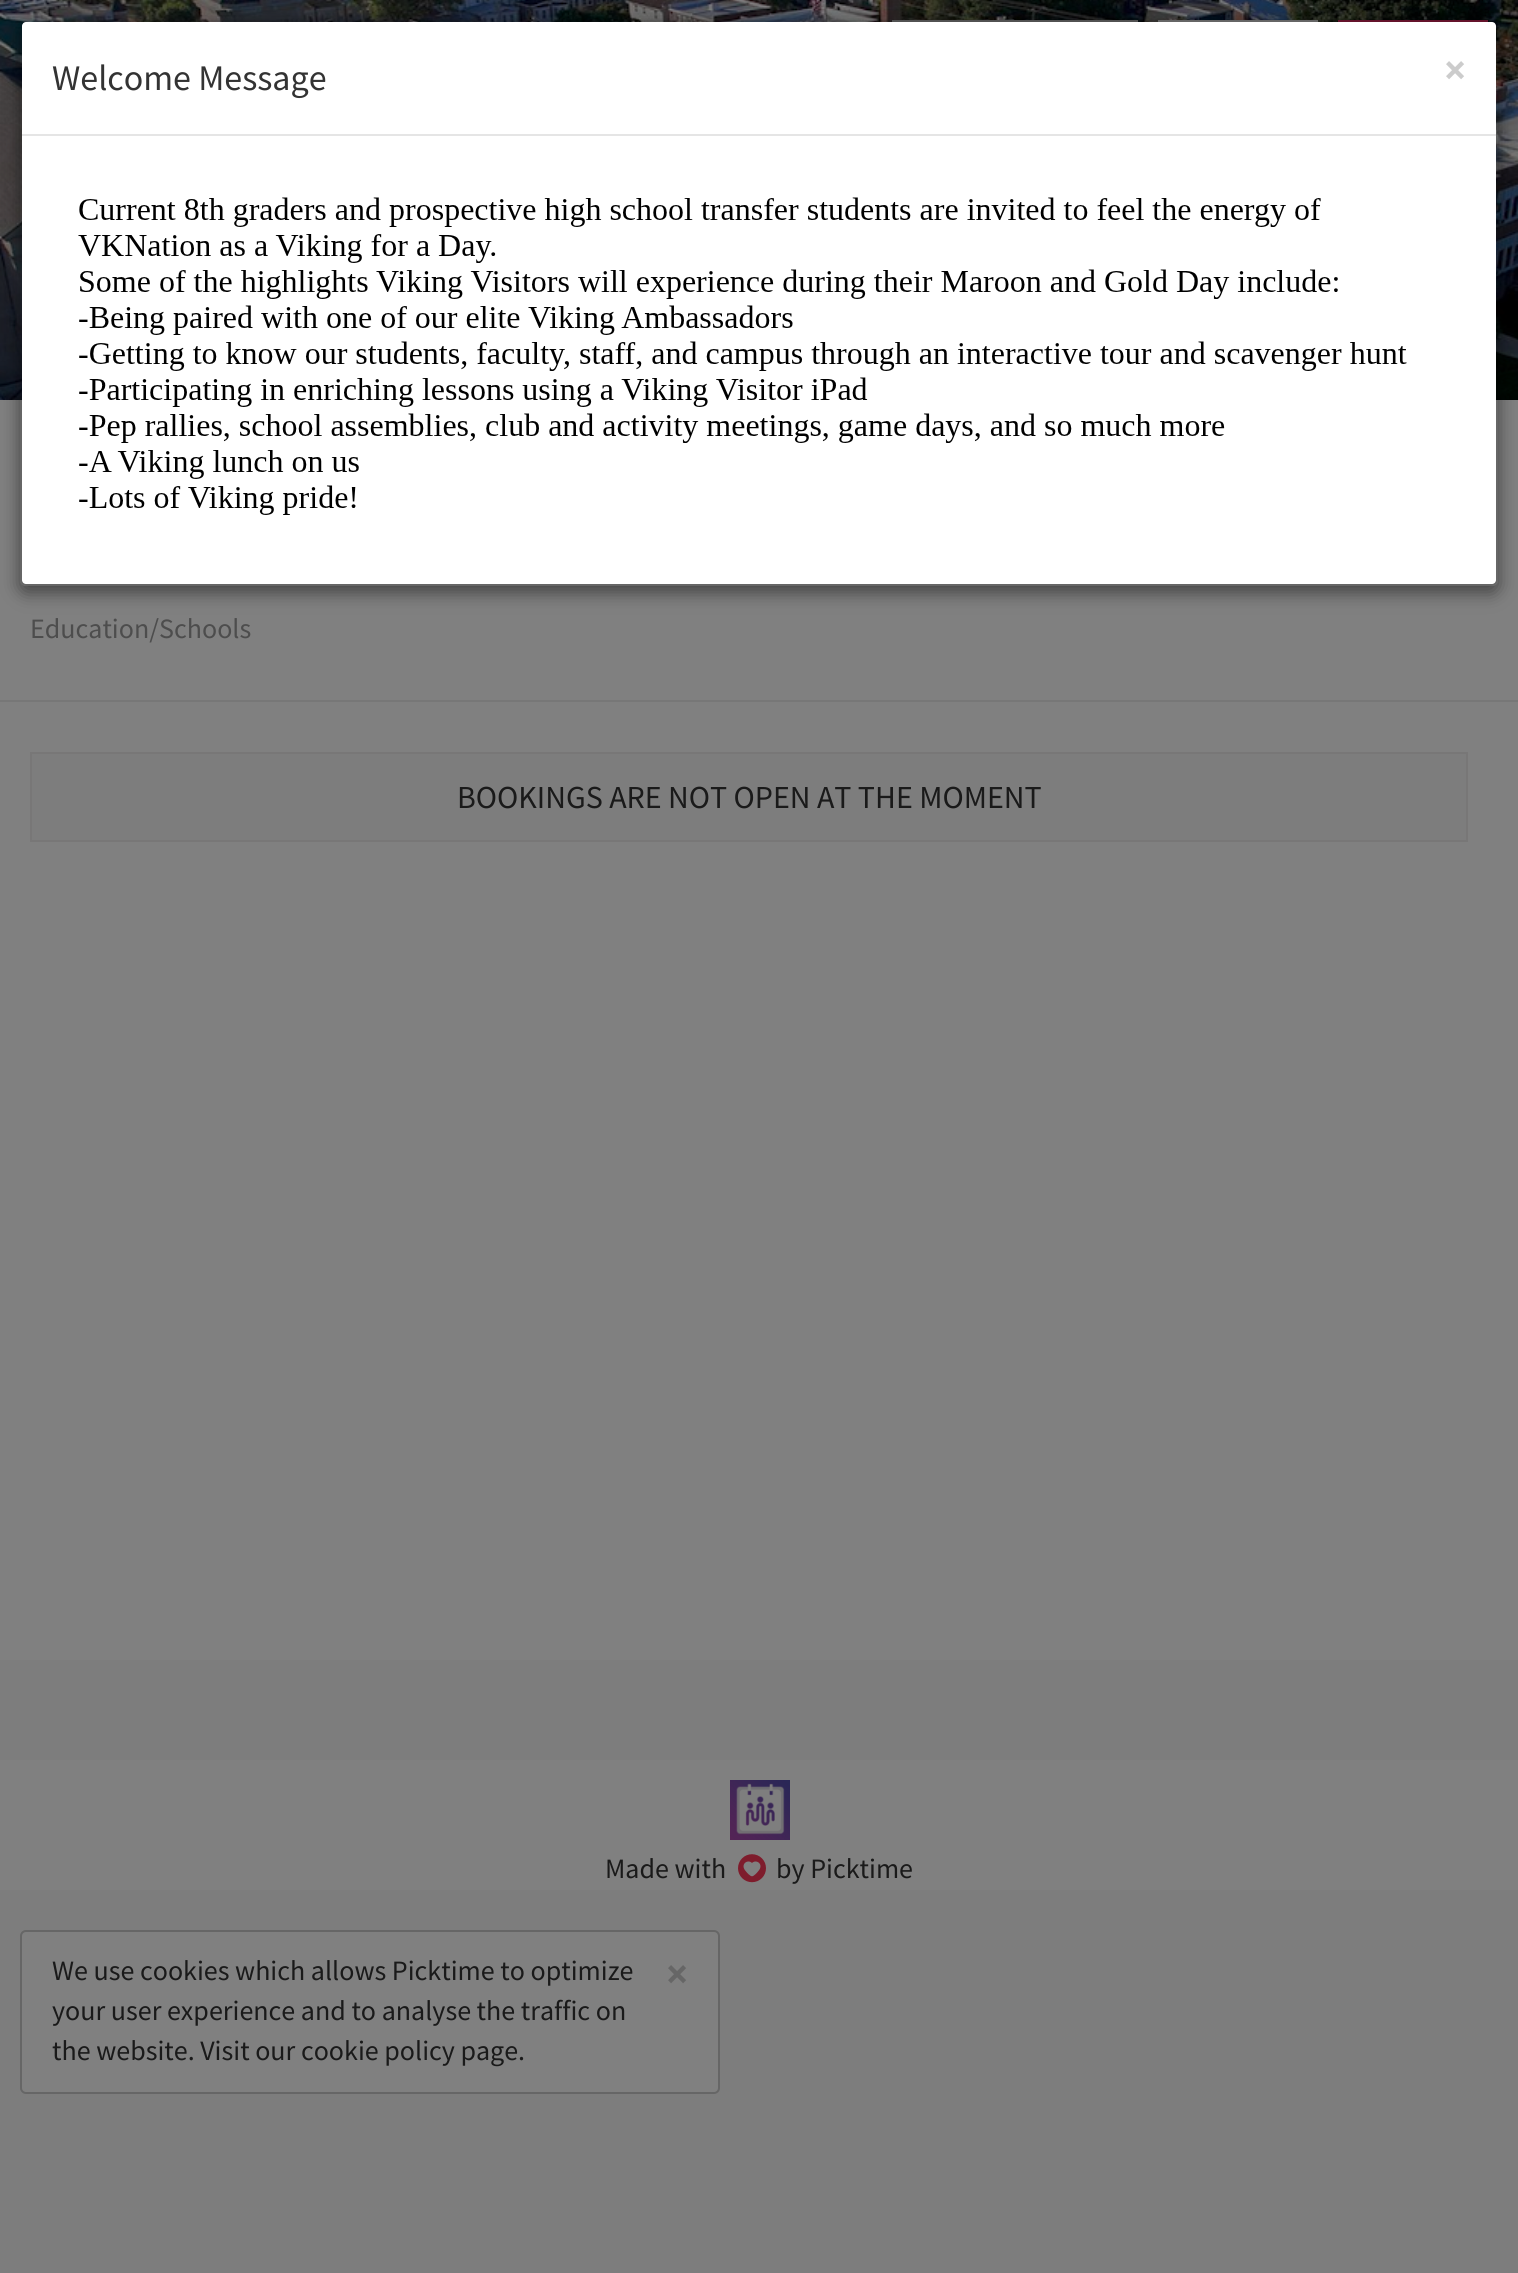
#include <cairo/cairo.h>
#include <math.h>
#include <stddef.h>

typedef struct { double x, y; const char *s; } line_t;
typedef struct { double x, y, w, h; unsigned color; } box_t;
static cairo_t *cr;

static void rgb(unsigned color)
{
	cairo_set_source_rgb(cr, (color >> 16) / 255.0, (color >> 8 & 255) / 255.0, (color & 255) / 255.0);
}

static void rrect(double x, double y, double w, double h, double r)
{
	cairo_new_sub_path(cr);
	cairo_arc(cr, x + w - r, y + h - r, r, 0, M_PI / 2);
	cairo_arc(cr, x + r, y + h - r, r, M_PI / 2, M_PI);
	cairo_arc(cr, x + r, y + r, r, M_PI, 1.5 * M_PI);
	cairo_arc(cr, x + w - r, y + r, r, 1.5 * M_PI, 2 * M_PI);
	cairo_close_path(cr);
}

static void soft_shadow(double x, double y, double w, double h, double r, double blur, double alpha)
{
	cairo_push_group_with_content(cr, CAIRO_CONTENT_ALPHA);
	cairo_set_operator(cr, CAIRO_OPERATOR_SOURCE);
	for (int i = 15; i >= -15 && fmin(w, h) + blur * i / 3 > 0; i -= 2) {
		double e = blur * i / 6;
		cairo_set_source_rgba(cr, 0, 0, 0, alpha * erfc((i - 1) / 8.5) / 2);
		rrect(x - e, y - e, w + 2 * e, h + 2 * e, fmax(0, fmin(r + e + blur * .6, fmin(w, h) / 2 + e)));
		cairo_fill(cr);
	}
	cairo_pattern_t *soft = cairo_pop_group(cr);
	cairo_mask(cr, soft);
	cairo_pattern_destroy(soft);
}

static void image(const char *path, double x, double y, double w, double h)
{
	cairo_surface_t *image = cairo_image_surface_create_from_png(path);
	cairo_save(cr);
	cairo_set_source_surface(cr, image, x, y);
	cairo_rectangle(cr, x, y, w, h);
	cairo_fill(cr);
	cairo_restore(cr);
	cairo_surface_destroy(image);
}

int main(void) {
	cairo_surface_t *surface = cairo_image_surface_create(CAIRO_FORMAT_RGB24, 1518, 2273);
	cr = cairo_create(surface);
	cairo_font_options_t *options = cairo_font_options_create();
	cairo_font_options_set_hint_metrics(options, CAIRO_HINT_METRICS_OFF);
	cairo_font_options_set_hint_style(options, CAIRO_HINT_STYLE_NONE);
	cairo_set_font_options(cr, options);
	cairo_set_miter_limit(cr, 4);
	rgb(0x7d7d7d);
	cairo_paint(cr);
	image("img/1.png", 0, 0, 1518, 400);
	cairo_rectangle(cr, 893, 21, 244, 62);
	rgb(0x666666);
	cairo_stroke(cr);
	{
		static const box_t items[] = {
			{1158, 20, 160, 2, 0x808080},
			{1338, 20, 150, 2, 0x7d1836},
			{0, 400, 1518, 1260, 0x808080},
		};
		for (size_t i = 0; i < sizeof items / sizeof *items; i++) {
			rgb(items[i].color);
			cairo_rectangle(cr, items[i].x, items[i].y, items[i].w, items[i].h);
			cairo_fill(cr);
		}
	}
	cairo_save(cr);
	cairo_set_fill_rule(cr, CAIRO_FILL_RULE_EVEN_ODD);
	cairo_new_path(cr);
	cairo_move_to(cr, 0, 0);
	cairo_line_to(cr, 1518, 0);
	cairo_line_to(cr, 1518, 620);
	cairo_line_to(cr, 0, 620);
	cairo_close_path(cr);
	cairo_move_to(cr, 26, 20);
	cairo_line_to(cr, 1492, 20);
	cairo_curve_to(cr, 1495.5, 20, 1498, 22.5, 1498, 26);
	cairo_line_to(cr, 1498, 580);
	cairo_curve_to(cr, 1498, 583.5, 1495.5, 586, 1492, 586);
	cairo_line_to(cr, 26, 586);
	cairo_curve_to(cr, 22.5, 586, 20, 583.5, 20, 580);
	cairo_line_to(cr, 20, 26);
	cairo_curve_to(cr, 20, 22.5, 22.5, 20, 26, 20);
	cairo_close_path(cr);
	cairo_clip(cr);
	rgb(0x000000);
	soft_shadow(20, 26, 1478, 566, 6, 9, 0.5);
	cairo_restore(cr);
	rgb(0xffffff);
	rrect(22, 22, 1474, 562, 4);
	cairo_fill(cr);
	rrect(21, 21, 1476, 564, 5);
	cairo_set_source_rgba(cr, 0, 0, 0, 0.2);
	cairo_stroke(cr);
	rgb(0xe5e5e5);
	cairo_rectangle(cr, 22, 134, 1474, 2);
	cairo_fill(cr);
	image("img/2.png", 78, 197, 1329, 318);
	rgb(0x777777);
	cairo_rectangle(cr, 0, 700, 1518, 2);
	cairo_fill(cr);
	rgb(0x7d7d7d);
	cairo_rectangle(cr, 31, 753, 1436, 88);
	cairo_fill_preserve(cr);
	rgb(0x787777);
	cairo_stroke(cr);
	rgb(0x808080);
	cairo_rectangle(cr, 0, 1760, 1518, 130);
	cairo_fill(cr);
	image("img/3.png", 730, 1780, 60, 60);
	image("img/4.png", 738, 1854, 28, 29);
	rrect(21, 1931, 698, 162, 5);
	cairo_fill_preserve(cr);
	rgb(0x666666);
	cairo_stroke(cr);
	cairo_select_font_face(cr, "Source Sans Pro", CAIRO_FONT_SLANT_NORMAL, CAIRO_FONT_WEIGHT_NORMAL);
	cairo_set_font_size(cr, 36);
	rgb(0x333333);
	cairo_move_to(cr, 52, 90);
	cairo_show_text(cr, "Welcome Message");
	cairo_select_font_face(cr, "Source Sans Pro", CAIRO_FONT_SLANT_NORMAL, CAIRO_FONT_WEIGHT_BOLD);
	cairo_set_font_size(cr, 42);
	rgb(0xcccccc);
	cairo_move_to(cr, 1444, 84);
	cairo_show_text(cr, "×");
	cairo_select_font_face(cr, "Source Sans Pro", CAIRO_FONT_SLANT_NORMAL, CAIRO_FONT_WEIGHT_NORMAL);
	cairo_set_font_size(cr, 28);
	rgb(0x4d4d4d);
	cairo_move_to(cr, 30, 638);
	cairo_show_text(cr, "Education/Schools");
	cairo_set_font_size(cr, 32);
	rgb(0x1a1a1a);
	cairo_move_to(cr, 457, 808);
	cairo_show_text(cr, "BOOKINGS ARE NOT OPEN AT THE MOMENT");
	cairo_set_font_size(cr, 28);
	{
		static const line_t items[] = {
			{605, 1878, "Made with"},
			{776, 1878, "by Picktime"},
			{52, 1980, "We use cookies which allows Picktime to optimize"},
		};
		for (size_t i = 0; i < sizeof items / sizeof *items; i++) {
			cairo_move_to(cr, items[i].x, items[i].y);
			cairo_show_text(cr, items[i].s);
		}
	}
	cairo_select_font_face(cr, "Source Sans Pro", CAIRO_FONT_SLANT_NORMAL, CAIRO_FONT_WEIGHT_BOLD);
	cairo_set_font_size(cr, 42);
	rgb(0x666666);
	cairo_move_to(cr, 666, 1988);
	cairo_show_text(cr, "×");
	cairo_select_font_face(cr, "Source Sans Pro", CAIRO_FONT_SLANT_NORMAL, CAIRO_FONT_WEIGHT_NORMAL);
	cairo_set_font_size(cr, 28);
	rgb(0x1a1a1a);
	cairo_move_to(cr, 52, 2020);
	cairo_show_text(cr, "your user experience and to analyse the traffic on");
	cairo_move_to(cr, 52, 2060);
	cairo_show_text(cr, "the website. Visit our cookie policy page.");
	cairo_surface_write_to_png(surface, "page.png");
	cairo_font_options_destroy(options);
	cairo_destroy(cr);
	cairo_surface_destroy(surface);
	return 0;
}
